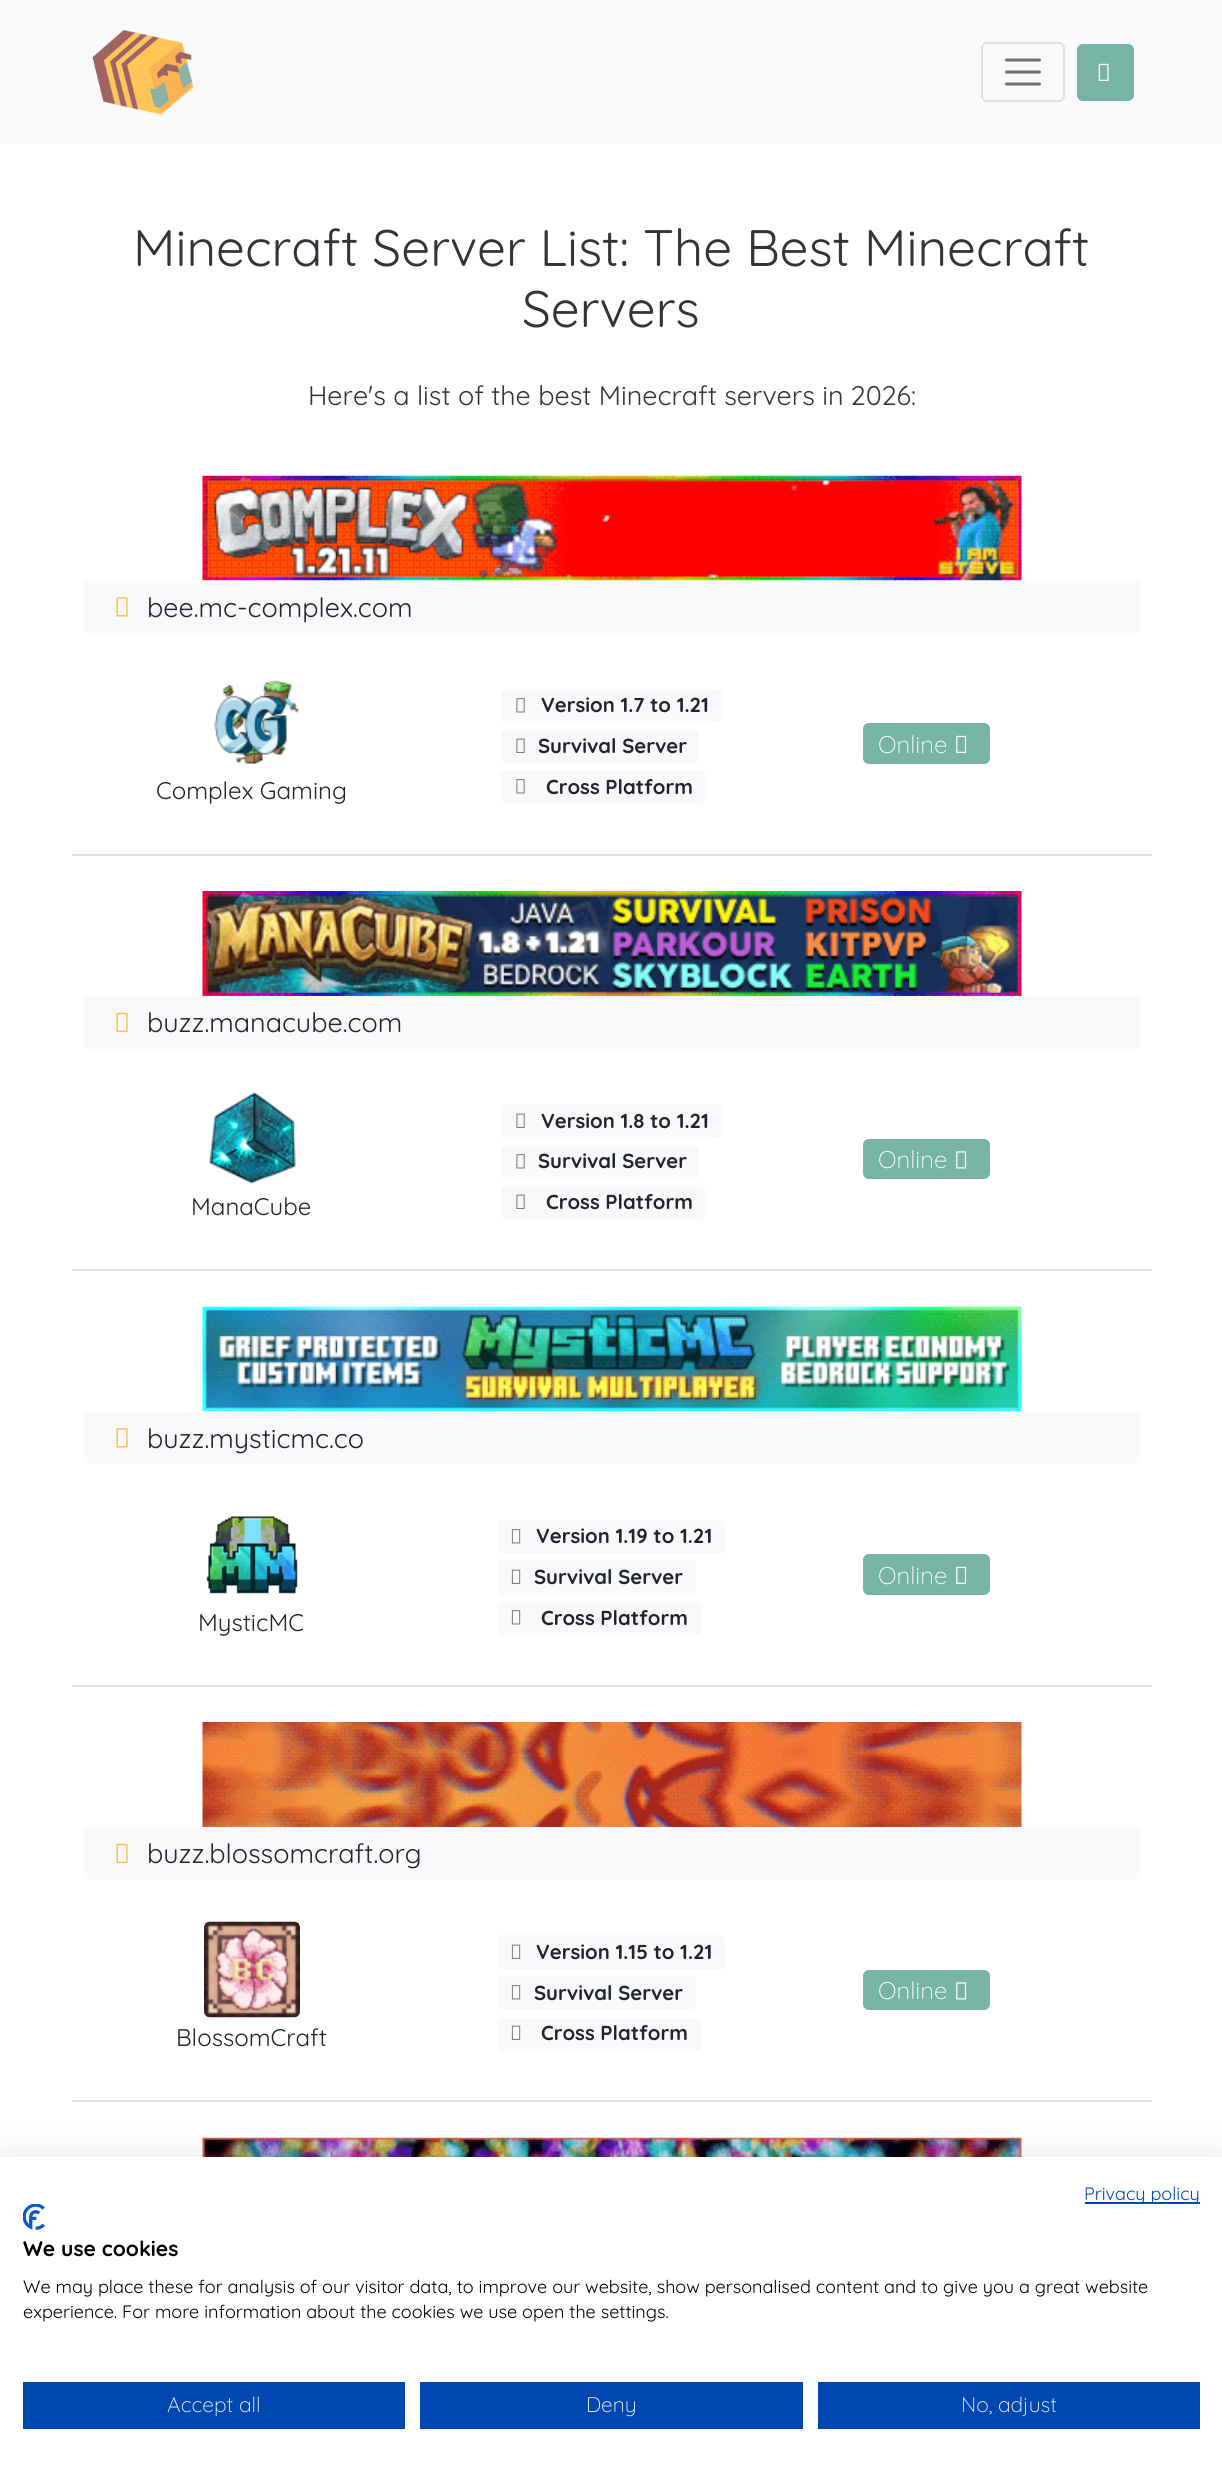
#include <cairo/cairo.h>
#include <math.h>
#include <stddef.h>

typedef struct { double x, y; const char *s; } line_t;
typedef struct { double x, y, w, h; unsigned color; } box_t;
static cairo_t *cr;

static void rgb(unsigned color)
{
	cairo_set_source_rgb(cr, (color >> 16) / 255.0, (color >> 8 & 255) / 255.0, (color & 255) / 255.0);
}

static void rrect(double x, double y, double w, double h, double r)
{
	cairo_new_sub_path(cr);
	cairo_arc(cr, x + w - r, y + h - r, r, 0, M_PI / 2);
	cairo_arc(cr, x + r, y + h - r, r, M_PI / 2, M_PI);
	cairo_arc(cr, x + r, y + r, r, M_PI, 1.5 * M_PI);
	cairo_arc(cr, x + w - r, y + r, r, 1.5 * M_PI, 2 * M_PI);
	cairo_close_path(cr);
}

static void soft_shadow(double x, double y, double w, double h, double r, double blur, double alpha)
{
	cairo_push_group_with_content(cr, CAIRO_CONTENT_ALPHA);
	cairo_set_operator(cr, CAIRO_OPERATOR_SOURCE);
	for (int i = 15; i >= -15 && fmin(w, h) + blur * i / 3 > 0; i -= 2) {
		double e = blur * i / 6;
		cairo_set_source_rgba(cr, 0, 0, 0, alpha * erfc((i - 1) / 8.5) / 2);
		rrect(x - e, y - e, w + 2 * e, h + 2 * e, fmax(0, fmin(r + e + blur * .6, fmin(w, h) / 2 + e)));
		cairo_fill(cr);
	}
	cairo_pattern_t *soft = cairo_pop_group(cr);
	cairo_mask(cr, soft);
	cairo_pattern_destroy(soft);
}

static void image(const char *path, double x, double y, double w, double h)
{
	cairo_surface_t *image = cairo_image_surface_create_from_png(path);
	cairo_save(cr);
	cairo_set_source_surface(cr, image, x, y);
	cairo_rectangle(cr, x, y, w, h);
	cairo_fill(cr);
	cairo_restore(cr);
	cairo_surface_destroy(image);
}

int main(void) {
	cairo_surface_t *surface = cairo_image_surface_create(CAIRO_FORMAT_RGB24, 1222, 2469);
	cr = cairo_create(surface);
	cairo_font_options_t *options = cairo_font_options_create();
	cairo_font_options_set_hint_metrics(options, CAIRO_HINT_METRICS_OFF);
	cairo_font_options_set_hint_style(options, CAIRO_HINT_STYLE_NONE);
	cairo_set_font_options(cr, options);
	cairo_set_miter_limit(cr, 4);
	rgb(0xffffff);
	cairo_paint(cr);
	rgb(0xf8f9fa);
	cairo_rectangle(cr, 0, 0, 1222, 144);
	cairo_fill(cr);
	image("img/1.png", 92, 30, 102, 85);
	rrect(982, 43, 82, 58, 5);
	rgb(0xdfe0e1);
	cairo_stroke(cr);
	cairo_new_path(cr);
	cairo_move_to(cr, 1006.5, 60);
	cairo_line_to(cr, 1039.5, 60);
	cairo_move_to(cr, 1006.5, 72);
	cairo_line_to(cr, 1039.5, 72);
	cairo_move_to(cr, 1006.5, 84);
	cairo_line_to(cr, 1039.5, 84);
	rgb(0x707071);
	cairo_set_line_width(cr, 3);
	cairo_set_line_cap(cr, CAIRO_LINE_CAP_ROUND);
	cairo_stroke(cr);
	rgb(0x78b4a5);
	rrect(1078, 45, 55, 55, 5);
	cairo_fill_preserve(cr);
	cairo_set_line_width(cr, 2);
	cairo_set_line_cap(cr, CAIRO_LINE_CAP_BUTT);
	cairo_stroke(cr);
	image("img/2.png", 1098, 63, 11, 18);
	rgb(0xdee2e6);
	cairo_rectangle(cr, 72, 854, 1080, 2);
	cairo_fill(cr);
	image("img/3.png", 202, 475, 820, 106);
	rgb(0xf8f9fa);
	cairo_new_path(cr);
	cairo_move_to(cr, 84, 581);
	cairo_line_to(cr, 1140, 581);
	cairo_line_to(cr, 1140, 627);
	cairo_curve_to(cr, 1140, 630.5, 1137.5, 633, 1134, 633);
	cairo_line_to(cr, 90, 633);
	cairo_curve_to(cr, 86.5, 633, 84, 630.5, 84, 627);
	cairo_close_path(cr);
	cairo_fill(cr);
	image("img/4.png", 116, 597, 12, 20);
	rrect(501, 689, 221, 34, 6);
	cairo_fill(cr);
	image("img/5.png", 516, 698, 9, 15);
	rrect(501, 729, 198, 35, 6);
	cairo_fill(cr);
	image("img/6.png", 516, 738, 9, 15);
	rrect(501, 770, 204, 34, 6);
	cairo_fill(cr);
	image("img/5.png", 516, 779, 9, 15);
	rgb(0x78b4a5);
	rrect(863, 723, 127, 41, 6);
	cairo_fill(cr);
	image("img/7.png", 956, 735, 11, 18);
	image("img/8.png", 214, 680, 85, 85);
	rgb(0xdee2e6);
	cairo_rectangle(cr, 72, 1269, 1080, 2);
	cairo_fill(cr);
	image("img/9.png", 202, 891, 820, 105);
	rgb(0xf8f9fa);
	cairo_new_path(cr);
	cairo_move_to(cr, 84, 996);
	cairo_line_to(cr, 1140, 996);
	cairo_line_to(cr, 1140, 1043);
	cairo_curve_to(cr, 1140, 1046.5, 1137.5, 1049, 1134, 1049);
	cairo_line_to(cr, 90, 1049);
	cairo_curve_to(cr, 86.5, 1049, 84, 1046.5, 84, 1043);
	cairo_close_path(cr);
	cairo_fill(cr);
	image("img/10.png", 116, 1012, 12, 20);
	rrect(501, 1104, 221, 35, 6);
	cairo_fill(cr);
	image("img/6.png", 516, 1113, 9, 15);
	rrect(501, 1145, 198, 34, 6);
	cairo_fill(cr);
	image("img/5.png", 516, 1154, 9, 15);
	rrect(501, 1185, 204, 35, 6);
	cairo_fill(cr);
	image("img/6.png", 516, 1194, 9, 15);
	rgb(0x78b4a5);
	rrect(863, 1139, 127, 40, 6);
	cairo_fill(cr);
	image("img/11.png", 956, 1151, 11, 18);
	image("img/12.png", 209, 1091, 87, 93);
	rgb(0xdee2e6);
	cairo_rectangle(cr, 72, 1685, 1080, 2);
	cairo_fill(cr);
	image("img/13.png", 202, 1306, 820, 106);
	rgb(0xf8f9fa);
	cairo_new_path(cr);
	cairo_move_to(cr, 84, 1412);
	cairo_line_to(cr, 1140, 1412);
	cairo_line_to(cr, 1140, 1458);
	cairo_curve_to(cr, 1140, 1461.5, 1137.5, 1464, 1134, 1464);
	cairo_line_to(cr, 90, 1464);
	cairo_curve_to(cr, 86.5, 1464, 84, 1461.5, 84, 1458);
	cairo_close_path(cr);
	cairo_fill(cr);
	image("img/4.png", 116, 1428, 12, 20);
	rrect(498, 1520, 227, 34, 6);
	cairo_fill(cr);
	image("img/14.png", 511, 1529, 10, 15);
	rrect(498, 1560, 198, 35, 6);
	cairo_fill(cr);
	image("img/15.png", 511, 1569, 10, 15);
	rrect(498, 1601, 203, 34, 6);
	cairo_fill(cr);
	image("img/14.png", 511, 1610, 10, 15);
	rgb(0x78b4a5);
	rrect(863, 1554, 127, 41, 6);
	cairo_fill(cr);
	image("img/7.png", 956, 1566, 11, 18);
	image("img/16.png", 206, 1516, 93, 78);
	rgb(0xdee2e6);
	cairo_rectangle(cr, 72, 2100, 1080, 2);
	cairo_fill(cr);
	image("img/17.png", 202, 1722, 820, 105);
	rgb(0xf8f9fa);
	cairo_new_path(cr);
	cairo_move_to(cr, 84, 1827);
	cairo_line_to(cr, 1140, 1827);
	cairo_line_to(cr, 1140, 1874);
	cairo_curve_to(cr, 1140, 1877.5, 1137.5, 1880, 1134, 1880);
	cairo_line_to(cr, 90, 1880);
	cairo_curve_to(cr, 86.5, 1880, 84, 1877.5, 84, 1874);
	cairo_close_path(cr);
	cairo_fill(cr);
	image("img/10.png", 116, 1843, 12, 20);
	rrect(498, 1935, 227, 35, 6);
	cairo_fill(cr);
	image("img/15.png", 511, 1944, 10, 15);
	rrect(498, 1976, 198, 34, 6);
	cairo_fill(cr);
	image("img/14.png", 511, 1985, 10, 15);
	rrect(498, 2018, 203, 33, 6);
	cairo_fill(cr);
	image("img/15.png", 511, 2025, 10, 15);
	rgb(0x78b4a5);
	rrect(863, 1970, 127, 40, 6);
	cairo_fill(cr);
	image("img/11.png", 956, 1982, 11, 18);
	image("img/18.png", 204, 1921, 96, 97);
	image("img/19.png", 202, 2137, 820, 20);
	rgb(0x000000);
	soft_shadow(0, 2157, 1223, 312, 0, 18, 0.1);
	rgb(0xffffff);
	cairo_rectangle(cr, 0, 2157, 1222, 312);
	cairo_fill(cr);
	rgb(0x0047b2);
	cairo_rectangle(cr, 1085, 2202, 115, 2);
	cairo_fill(cr);
	image("img/20.png", 23, 2204, 22, 26);
	{
		static const box_t items[] = {
			{23, 2382, 382, 47, 0x0047b2},
			{420, 2382, 383, 47, 0x0047b2},
			{818, 2382, 382, 47, 0x0047b2},
		};
		for (size_t i = 0; i < sizeof items / sizeof *items; i++) {
			rgb(items[i].color);
			cairo_rectangle(cr, items[i].x, items[i].y, items[i].w, items[i].h);
			cairo_fill(cr);
		}
	}
	cairo_select_font_face(cr, "Quicksand", CAIRO_FONT_SLANT_NORMAL, CAIRO_FONT_WEIGHT_NORMAL);
	cairo_set_font_size(cr, 51.3);
	rgb(0x313539);
	cairo_move_to(cr, 133, 266);
	cairo_show_text(cr, "Minecraft Server List: The Best Minecraft");
	cairo_move_to(cr, 522, 327);
	cairo_show_text(cr, "Servers");
	cairo_set_font_size(cr, 26.9);
	cairo_move_to(cr, 308, 405);
	cairo_show_text(cr, "Here's a list of the best Minecraft servers in 2026:");
	rgb(0x212529);
	cairo_move_to(cr, 147, 617);
	cairo_show_text(cr, "bee.mc-complex.com");
	cairo_select_font_face(cr, "Quicksand", CAIRO_FONT_SLANT_NORMAL, CAIRO_FONT_WEIGHT_BOLD);
	cairo_set_font_size(cr, 20.25);
	{
		static const line_t items[] = {
			{541, 712, "Version 1.7 to 1.21"},
			{538, 753, "Survival Server"},
			{546, 794, "Cross Platform"},
		};
		for (size_t i = 0; i < sizeof items / sizeof *items; i++) {
			cairo_move_to(cr, items[i].x, items[i].y);
			cairo_show_text(cr, items[i].s);
		}
	}
	cairo_select_font_face(cr, "Quicksand Light", CAIRO_FONT_SLANT_NORMAL, CAIRO_FONT_WEIGHT_NORMAL);
	cairo_set_font_size(cr, 24);
	rgb(0xffffff);
	cairo_move_to(cr, 878, 753);
	cairo_show_text(cr, "Online");
	cairo_select_font_face(cr, "Quicksand", CAIRO_FONT_SLANT_NORMAL, CAIRO_FONT_WEIGHT_NORMAL);
	rgb(0x212529);
	cairo_move_to(cr, 156, 799);
	cairo_show_text(cr, "Complex Gaming");
	cairo_set_font_size(cr, 26.9);
	cairo_move_to(cr, 147, 1032);
	cairo_show_text(cr, "buzz.manacube.com");
	cairo_select_font_face(cr, "Quicksand", CAIRO_FONT_SLANT_NORMAL, CAIRO_FONT_WEIGHT_BOLD);
	cairo_set_font_size(cr, 20.25);
	{
		static const line_t items[] = {
			{541, 1128, "Version 1.8 to 1.21"},
			{538, 1168, "Survival Server"},
			{546, 1209, "Cross Platform"},
		};
		for (size_t i = 0; i < sizeof items / sizeof *items; i++) {
			cairo_move_to(cr, items[i].x, items[i].y);
			cairo_show_text(cr, items[i].s);
		}
	}
	cairo_select_font_face(cr, "Quicksand Light", CAIRO_FONT_SLANT_NORMAL, CAIRO_FONT_WEIGHT_NORMAL);
	cairo_set_font_size(cr, 24);
	rgb(0xffffff);
	cairo_move_to(cr, 878, 1168);
	cairo_show_text(cr, "Online");
	cairo_select_font_face(cr, "Quicksand", CAIRO_FONT_SLANT_NORMAL, CAIRO_FONT_WEIGHT_NORMAL);
	rgb(0x212529);
	cairo_move_to(cr, 191, 1215);
	cairo_show_text(cr, "ManaCube");
	cairo_set_font_size(cr, 26.9);
	cairo_move_to(cr, 147, 1448);
	cairo_show_text(cr, "buzz.mysticmc.co");
	cairo_select_font_face(cr, "Quicksand", CAIRO_FONT_SLANT_NORMAL, CAIRO_FONT_WEIGHT_BOLD);
	cairo_set_font_size(cr, 20.25);
	{
		static const line_t items[] = {
			{536, 1543, "Version 1.19 to 1.21"},
			{534, 1584, "Survival Server"},
			{541, 1625, "Cross Platform"},
		};
		for (size_t i = 0; i < sizeof items / sizeof *items; i++) {
			cairo_move_to(cr, items[i].x, items[i].y);
			cairo_show_text(cr, items[i].s);
		}
	}
	cairo_select_font_face(cr, "Quicksand Light", CAIRO_FONT_SLANT_NORMAL, CAIRO_FONT_WEIGHT_NORMAL);
	cairo_set_font_size(cr, 24);
	rgb(0xffffff);
	cairo_move_to(cr, 878, 1584);
	cairo_show_text(cr, "Online");
	cairo_select_font_face(cr, "Quicksand", CAIRO_FONT_SLANT_NORMAL, CAIRO_FONT_WEIGHT_NORMAL);
	rgb(0x212529);
	cairo_move_to(cr, 198, 1631);
	cairo_show_text(cr, "MysticMC");
	cairo_set_font_size(cr, 26.9);
	cairo_move_to(cr, 147, 1863);
	cairo_show_text(cr, "buzz.blossomcraft.org");
	cairo_select_font_face(cr, "Quicksand", CAIRO_FONT_SLANT_NORMAL, CAIRO_FONT_WEIGHT_BOLD);
	cairo_set_font_size(cr, 20.25);
	{
		static const line_t items[] = {
			{536, 1959, "Version 1.15 to 1.21"},
			{534, 2000, "Survival Server"},
			{541, 2040, "Cross Platform"},
		};
		for (size_t i = 0; i < sizeof items / sizeof *items; i++) {
			cairo_move_to(cr, items[i].x, items[i].y);
			cairo_show_text(cr, items[i].s);
		}
	}
	cairo_select_font_face(cr, "Quicksand Light", CAIRO_FONT_SLANT_NORMAL, CAIRO_FONT_WEIGHT_NORMAL);
	cairo_set_font_size(cr, 24);
	rgb(0xffffff);
	cairo_move_to(cr, 878, 1999);
	cairo_show_text(cr, "Online");
	cairo_select_font_face(cr, "Quicksand", CAIRO_FONT_SLANT_NORMAL, CAIRO_FONT_WEIGHT_NORMAL);
	rgb(0x212529);
	cairo_move_to(cr, 176, 2046);
	cairo_show_text(cr, "BlossomCraft");
	cairo_set_font_size(cr, 18);
	rgb(0x0047b2);
	cairo_move_to(cr, 1084, 2200);
	cairo_show_text(cr, "Privacy policy");
	cairo_select_font_face(cr, "Quicksand", CAIRO_FONT_SLANT_NORMAL, CAIRO_FONT_WEIGHT_BOLD);
	cairo_set_font_size(cr, 21);
	rgb(0x000000);
	cairo_move_to(cr, 23, 2256);
	cairo_show_text(cr, "We use cookies");
	cairo_select_font_face(cr, "Quicksand", CAIRO_FONT_SLANT_NORMAL, CAIRO_FONT_WEIGHT_NORMAL);
	cairo_set_font_size(cr, 18);
	cairo_move_to(cr, 23, 2293);
	cairo_show_text(cr, "We may place these for analysis of our visitor data, to improve our website, show personalised content and to give you a great website");
	cairo_move_to(cr, 23, 2318);
	cairo_show_text(cr, "experience. For more information about the cookies we use open the settings.");
	cairo_select_font_face(cr, "Quicksand Light", CAIRO_FONT_SLANT_NORMAL, CAIRO_FONT_WEIGHT_NORMAL);
	cairo_set_font_size(cr, 21);
	rgb(0xffffff);
	{
		static const line_t items[] = {
			{167, 2412, "Accept all"},
			{586, 2412, "Deny"},
			{961, 2412, "No, adjust"},
		};
		for (size_t i = 0; i < sizeof items / sizeof *items; i++) {
			cairo_move_to(cr, items[i].x, items[i].y);
			cairo_show_text(cr, items[i].s);
		}
	}
	cairo_surface_write_to_png(surface, "page.png");
	cairo_font_options_destroy(options);
	cairo_destroy(cr);
	cairo_surface_destroy(surface);
	return 0;
}
